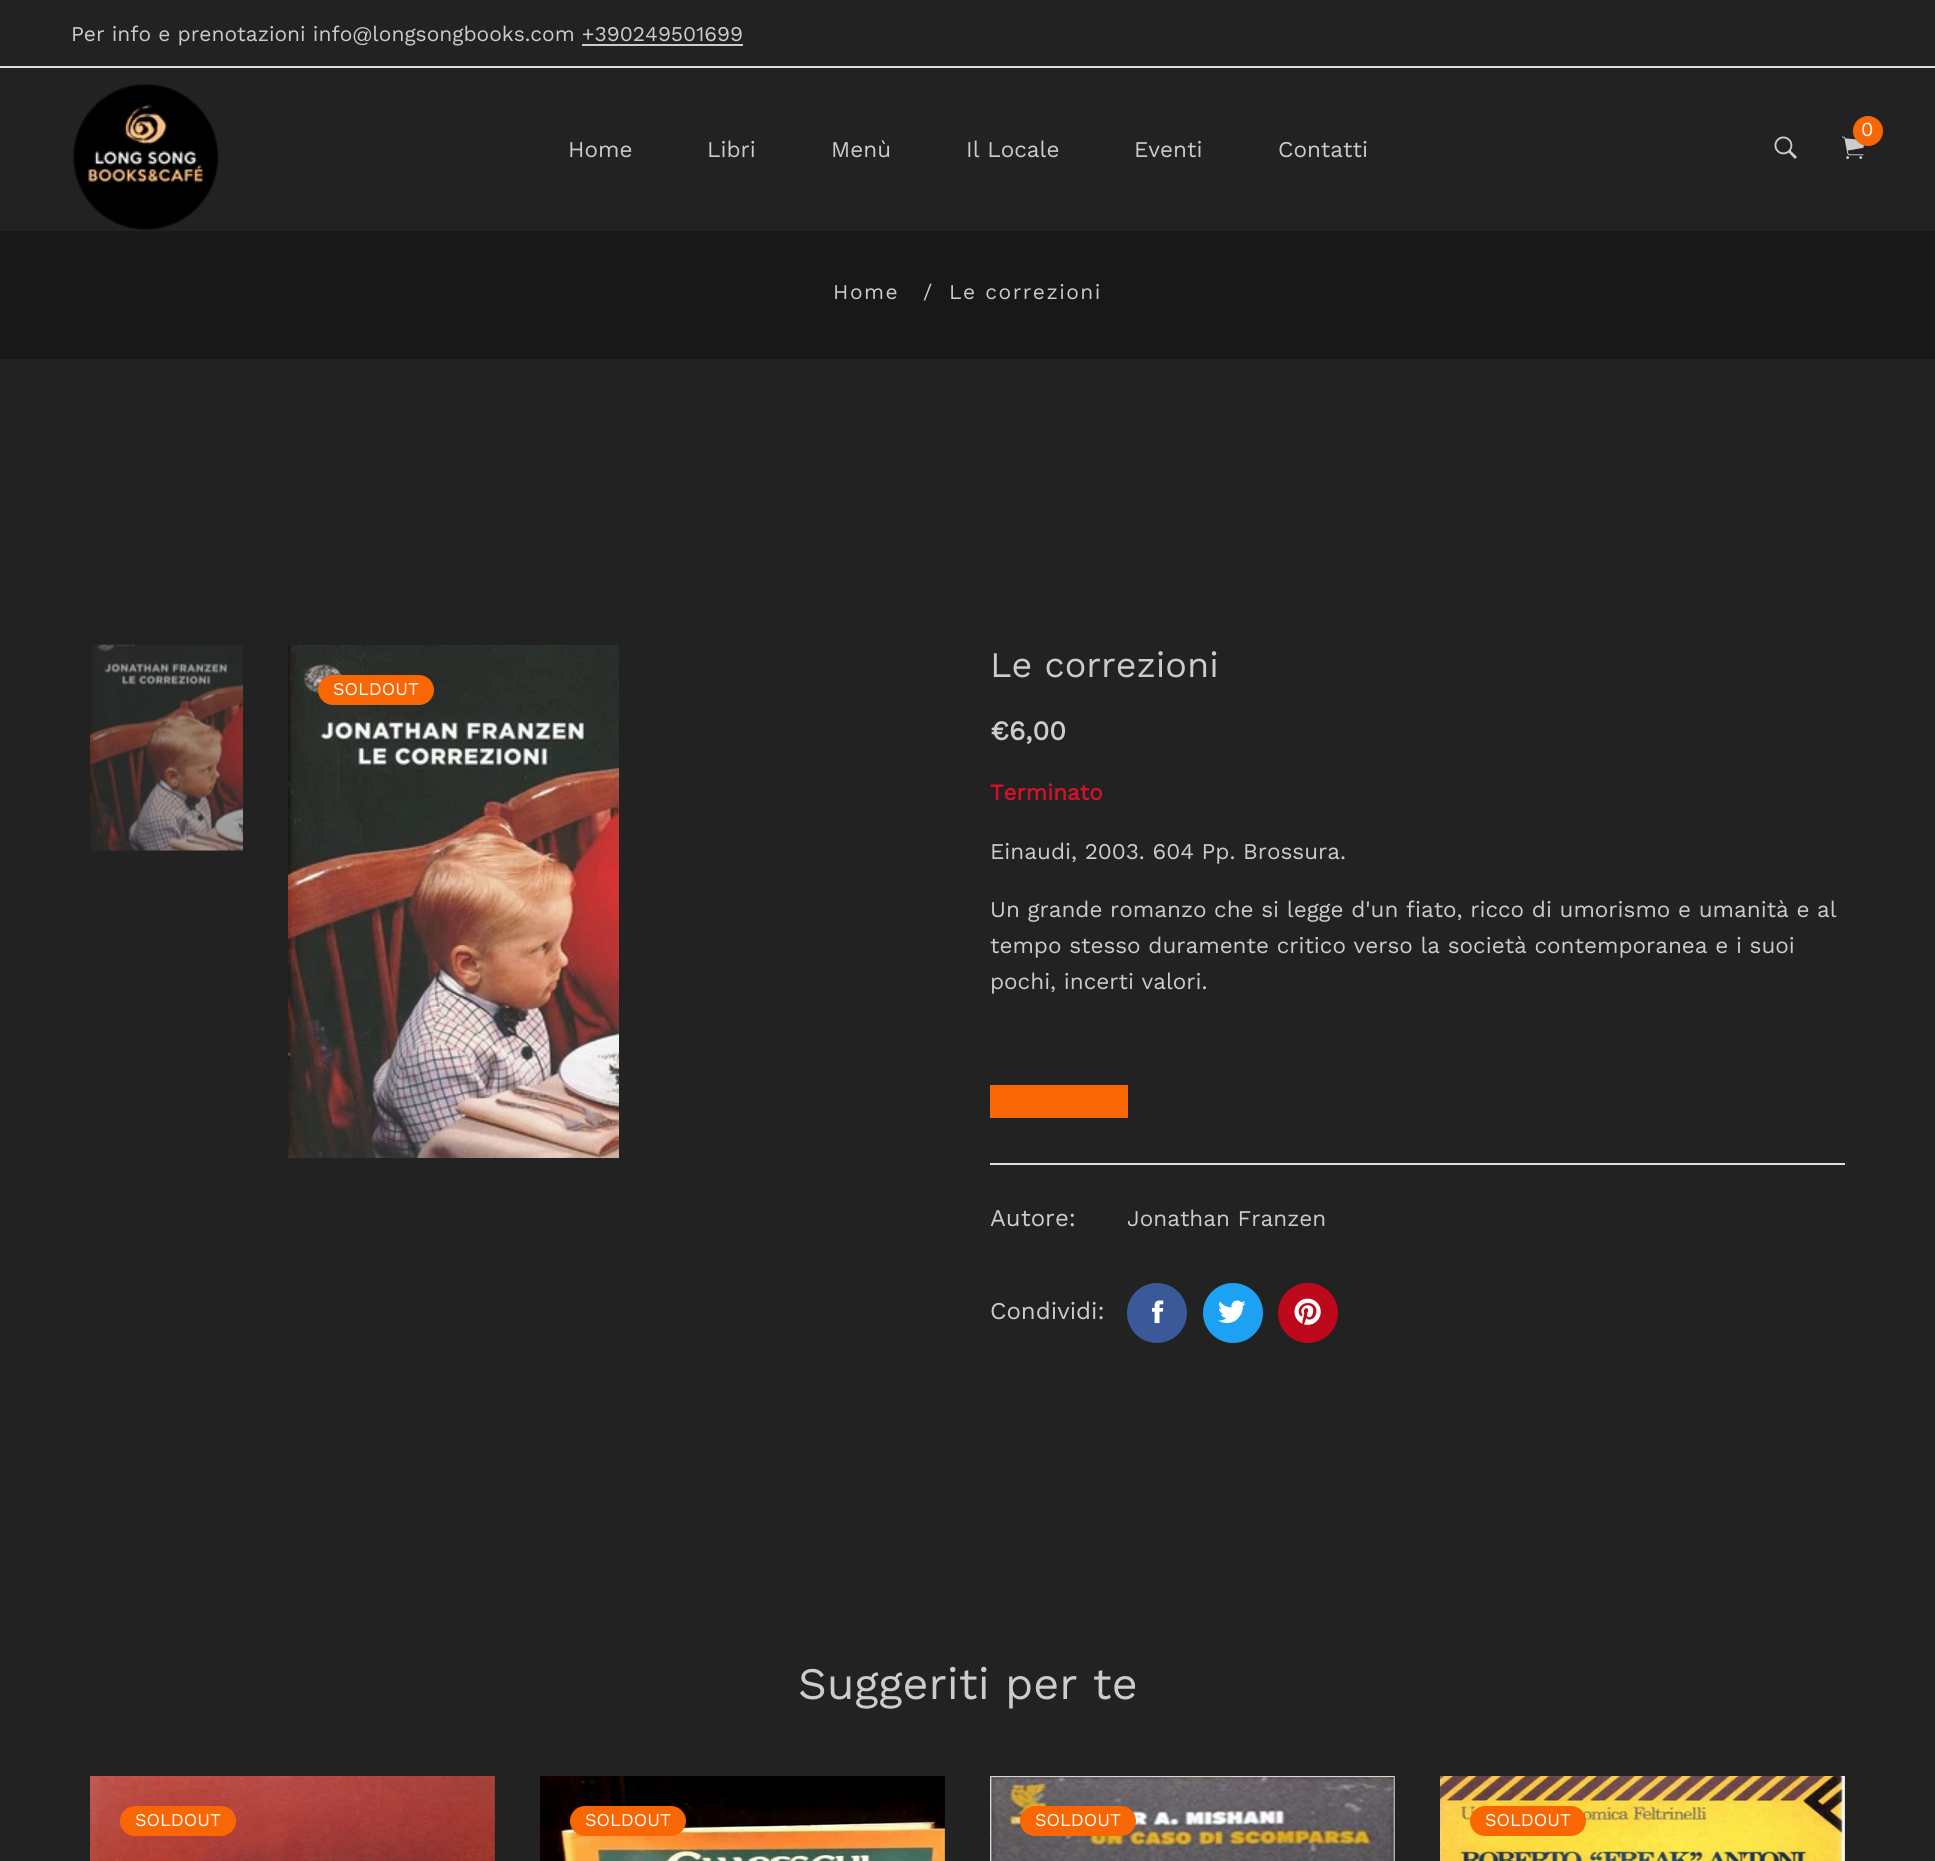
#include <cairo/cairo.h>
#include <math.h>
#include <stddef.h>

typedef struct { double x, y; const char *s; } line_t;
static cairo_t *cr;

static void rgb(unsigned color)
{
	cairo_set_source_rgb(cr, (color >> 16) / 255.0, (color >> 8 & 255) / 255.0, (color & 255) / 255.0);
}

static void tracked(double x, double y, const char *s, double letter, double word)
{
	cairo_move_to(cr, x, y);
	while (*s) {
		char ch[5] = {0};
		int n = 0;
		do ch[n++] = *s++; while ((*s & 0xC0) == 0x80);
		cairo_show_text(cr, ch);
		cairo_rel_move_to(cr, letter + word * (*ch == ' '), 0);
	}
}

static void rrect(double x, double y, double w, double h, double r)
{
	cairo_new_sub_path(cr);
	cairo_arc(cr, x + w - r, y + h - r, r, 0, M_PI / 2);
	cairo_arc(cr, x + r, y + h - r, r, M_PI / 2, M_PI);
	cairo_arc(cr, x + r, y + r, r, M_PI, 1.5 * M_PI);
	cairo_arc(cr, x + w - r, y + r, r, 1.5 * M_PI, 2 * M_PI);
	cairo_close_path(cr);
}

static void image(const char *path, double x, double y, double w, double h)
{
	cairo_surface_t *image = cairo_image_surface_create_from_png(path);
	cairo_save(cr);
	cairo_set_source_surface(cr, image, x, y);
	cairo_rectangle(cr, x, y, w, h);
	cairo_fill(cr);
	cairo_restore(cr);
	cairo_surface_destroy(image);
}

int main(void) {
	cairo_surface_t *surface = cairo_image_surface_create(CAIRO_FORMAT_RGB24, 1935, 1861);
	cr = cairo_create(surface);
	cairo_font_options_t *options = cairo_font_options_create();
	cairo_font_options_set_hint_metrics(options, CAIRO_HINT_METRICS_OFF);
	cairo_font_options_set_hint_style(options, CAIRO_HINT_STYLE_NONE);
	cairo_set_font_options(cr, options);
	cairo_set_miter_limit(cr, 4);
	rgb(0x222222);
	cairo_paint(cr);
	rgb(0xdedede);
	cairo_rectangle(cr, 0, 66, 1935, 2);
	cairo_fill(cr);
	rgb(0xcccccc);
	cairo_rectangle(cr, 582, 44, 161, 2);
	cairo_fill(cr);
	image("img/1.png", 73, 84, 146, 146);
	image("img/2.png", 1842, 136, 22, 23);
	rgb(0xf96705);
	cairo_arc(cr, 1868, 131, 15, 0, 2 * M_PI);
	cairo_fill(cr);
	image("img/3.png", 1774, 136, 23, 23);
	rgb(0x181818);
	cairo_rectangle(cr, 0, 231, 1935, 128);
	cairo_fill(cr);
	image("img/4.png", 90, 644, 153, 207);
	image("img/5.png", 288, 645, 331, 513);
	rgb(0xf96705);
	rrect(318, 675, 116, 30, 15);
	cairo_fill(cr);
	cairo_rectangle(cr, 990, 1085, 138, 33);
	cairo_fill(cr);
	rgb(0xe0e0e0);
	cairo_rectangle(cr, 990, 1163, 855, 2);
	cairo_fill(cr);
	rgb(0x3b5998);
	cairo_arc(cr, 1157, 1313, 30, 0, 2 * M_PI);
	cairo_fill(cr);
	image("img/6.png", 1152, 1300, 12, 23);
	rgb(0x1da1f2);
	cairo_arc(cr, 1233, 1313, 30, 0, 2 * M_PI);
	cairo_fill(cr);
	image("img/7.png", 1218, 1300, 28, 23);
	rgb(0xbd081b);
	cairo_arc(cr, 1308, 1313, 30, 0, 2 * M_PI);
	cairo_fill(cr);
	image("img/8.png", 1294, 1298, 27, 27);
	image("img/9.png", 90, 1776, 405, 85);
	rgb(0xf96705);
	rrect(120, 1806, 116, 30, 15);
	cairo_fill(cr);
	image("img/10.png", 540, 1776, 405, 85);
	rrect(570, 1806, 116, 30, 15);
	cairo_fill(cr);
	image("img/11.png", 990, 1776, 405, 85);
	rrect(1020, 1806, 116, 30, 15);
	cairo_fill(cr);
	image("img/12.png", 1440, 1776, 405, 85);
	rrect(1470, 1806, 116, 30, 15);
	cairo_fill(cr);
	cairo_select_font_face(cr, "Work Sans", CAIRO_FONT_SLANT_NORMAL, CAIRO_FONT_WEIGHT_NORMAL);
	cairo_set_font_size(cr, 21);
	rgb(0xcccccc);
	cairo_move_to(cr, 71, 41);
	cairo_show_text(cr, "Per info e prenotazioni info@longsongbooks.com +390249501699");
	cairo_set_font_size(cr, 20);
	rgb(0xffffff);
	cairo_move_to(cr, 1861, 136);
	cairo_show_text(cr, "0");
	cairo_set_font_size(cr, 22.5);
	rgb(0xcccccc);
	{
		static const line_t items[] = {
			{568, 157, "Home"},
			{707, 157, "Libri"},
			{831, 157, "Menù"},
			{966, 157, "Il Locale"},
			{1134, 157, "Eventi"},
			{1278, 157, "Contatti"},
		};
		for (size_t i = 0; i < sizeof items / sizeof *items; i++) {
			cairo_move_to(cr, items[i].x, items[i].y);
			cairo_show_text(cr, items[i].s);
		}
	}
	cairo_set_font_size(cr, 21);
	{
		static const line_t items[] = {
			{833, 299, "Home"},
			{923, 299, "/"},
			{949, 299, "Le correzioni"},
		};
		for (size_t i = 0; i < sizeof items / sizeof *items; i++) {
			tracked(items[i].x, items[i].y, items[i].s, 1.5, 0);
		}
	}
	cairo_set_font_size(cr, 18);
	rgb(0xffffff);
	cairo_move_to(cr, 333, 695);
	cairo_show_text(cr, "SOLDOUT");
	cairo_set_font_size(cr, 36);
	rgb(0xcccccc);
	cairo_move_to(cr, 990, 677);
	cairo_show_text(cr, "Le correzioni");
	cairo_select_font_face(cr, "Work Sans", CAIRO_FONT_SLANT_NORMAL, CAIRO_FONT_WEIGHT_BOLD);
	cairo_set_font_size(cr, 27);
	cairo_move_to(cr, 990, 740);
	cairo_show_text(cr, "€6,00");
	cairo_set_font_size(cr, 22.5);
	rgb(0xd3122a);
	cairo_move_to(cr, 990, 800);
	cairo_show_text(cr, "Terminato");
	cairo_select_font_face(cr, "Work Sans", CAIRO_FONT_SLANT_NORMAL, CAIRO_FONT_WEIGHT_NORMAL);
	rgb(0xcccccc);
	{
		static const line_t items[] = {
			{990, 859, "Einaudi, 2003. 604 Pp. Brossura."},
			{990, 917, "Un grande romanzo che si legge d'un fiato, ricco di umorismo e umanità e al"},
			{990, 953, "tempo stesso duramente critico verso la società contemporanea e i suoi"},
			{990, 989, "pochi, incerti valori."},
		};
		for (size_t i = 0; i < sizeof items / sizeof *items; i++) {
			cairo_move_to(cr, items[i].x, items[i].y);
			cairo_show_text(cr, items[i].s);
		}
	}
	cairo_set_font_size(cr, 24);
	cairo_move_to(cr, 990, 1226);
	cairo_show_text(cr, "Autore:");
	cairo_set_font_size(cr, 22.5);
	cairo_move_to(cr, 1127, 1226);
	cairo_show_text(cr, "Jonathan Franzen");
	cairo_set_font_size(cr, 24);
	cairo_move_to(cr, 990, 1319);
	cairo_show_text(cr, "Condividi:");
	cairo_set_font_size(cr, 45);
	cairo_move_to(cr, 798, 1699);
	cairo_show_text(cr, "Suggeriti per te");
	cairo_set_font_size(cr, 18);
	rgb(0xffffff);
	{
		static const line_t items[] = {
			{135, 1826, "SOLDOUT"},
			{585, 1826, "SOLDOUT"},
			{1035, 1826, "SOLDOUT"},
			{1485, 1826, "SOLDOUT"},
		};
		for (size_t i = 0; i < sizeof items / sizeof *items; i++) {
			cairo_move_to(cr, items[i].x, items[i].y);
			cairo_show_text(cr, items[i].s);
		}
	}
	cairo_surface_write_to_png(surface, "page.png");
	cairo_font_options_destroy(options);
	cairo_destroy(cr);
	cairo_surface_destroy(surface);
	return 0;
}
